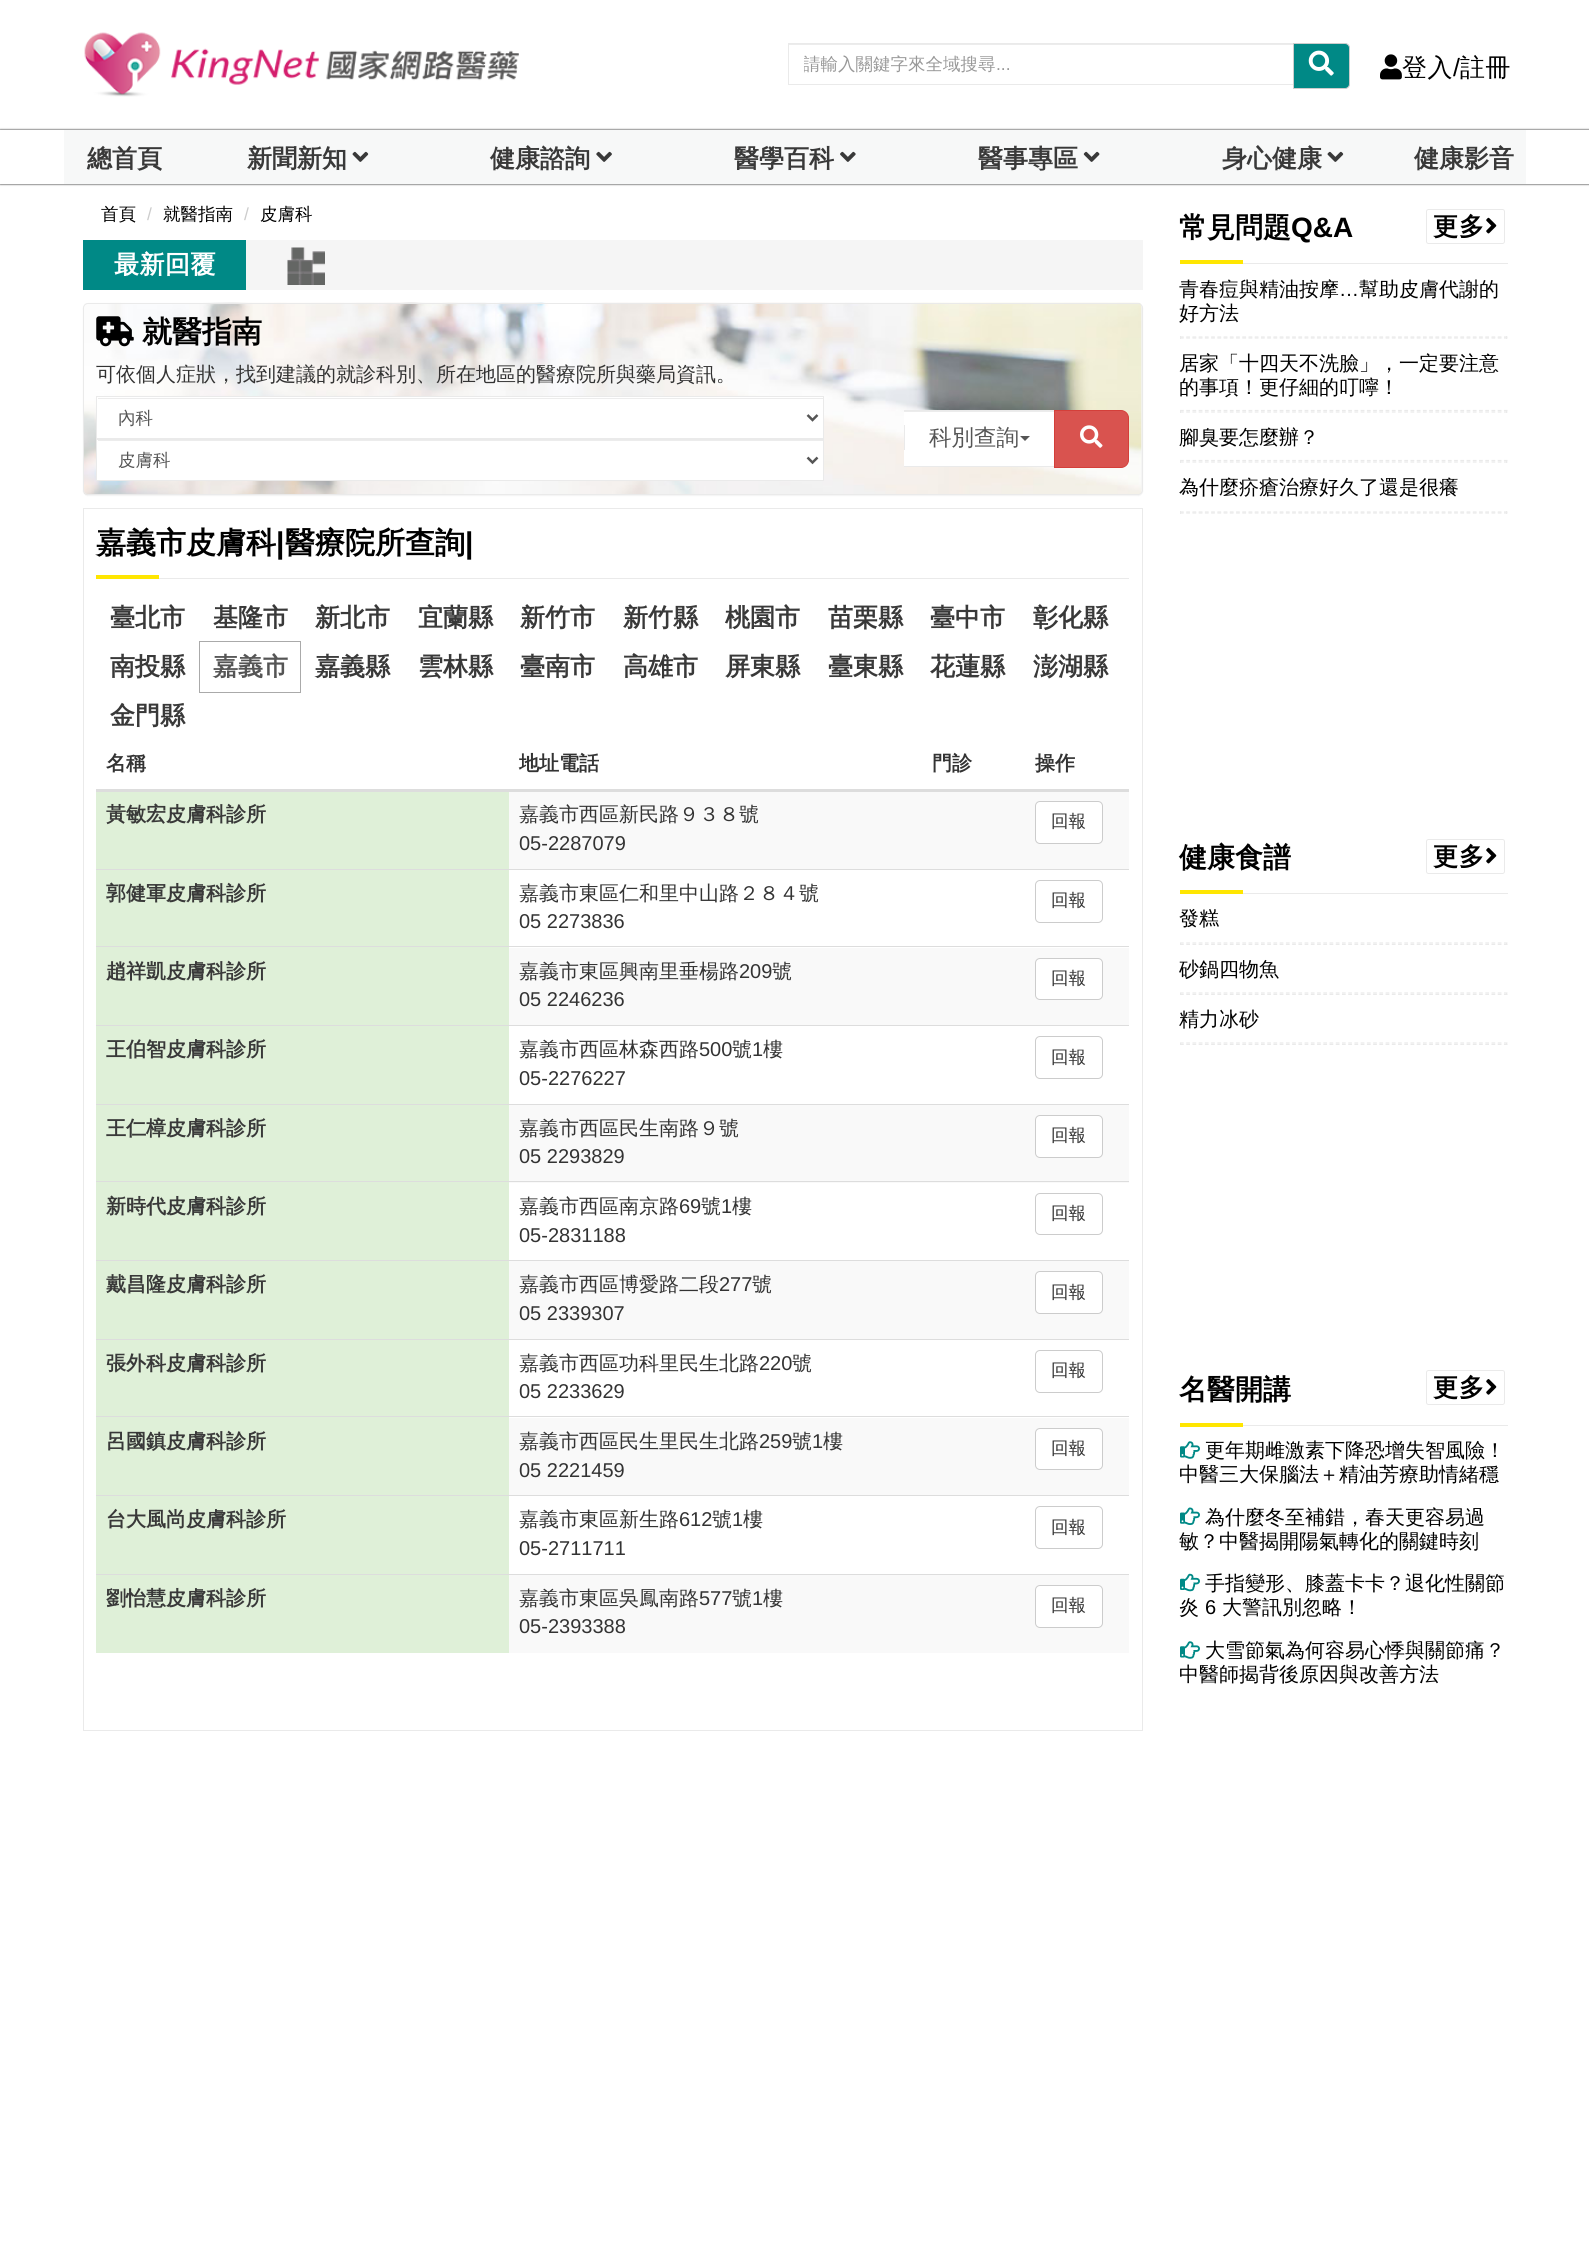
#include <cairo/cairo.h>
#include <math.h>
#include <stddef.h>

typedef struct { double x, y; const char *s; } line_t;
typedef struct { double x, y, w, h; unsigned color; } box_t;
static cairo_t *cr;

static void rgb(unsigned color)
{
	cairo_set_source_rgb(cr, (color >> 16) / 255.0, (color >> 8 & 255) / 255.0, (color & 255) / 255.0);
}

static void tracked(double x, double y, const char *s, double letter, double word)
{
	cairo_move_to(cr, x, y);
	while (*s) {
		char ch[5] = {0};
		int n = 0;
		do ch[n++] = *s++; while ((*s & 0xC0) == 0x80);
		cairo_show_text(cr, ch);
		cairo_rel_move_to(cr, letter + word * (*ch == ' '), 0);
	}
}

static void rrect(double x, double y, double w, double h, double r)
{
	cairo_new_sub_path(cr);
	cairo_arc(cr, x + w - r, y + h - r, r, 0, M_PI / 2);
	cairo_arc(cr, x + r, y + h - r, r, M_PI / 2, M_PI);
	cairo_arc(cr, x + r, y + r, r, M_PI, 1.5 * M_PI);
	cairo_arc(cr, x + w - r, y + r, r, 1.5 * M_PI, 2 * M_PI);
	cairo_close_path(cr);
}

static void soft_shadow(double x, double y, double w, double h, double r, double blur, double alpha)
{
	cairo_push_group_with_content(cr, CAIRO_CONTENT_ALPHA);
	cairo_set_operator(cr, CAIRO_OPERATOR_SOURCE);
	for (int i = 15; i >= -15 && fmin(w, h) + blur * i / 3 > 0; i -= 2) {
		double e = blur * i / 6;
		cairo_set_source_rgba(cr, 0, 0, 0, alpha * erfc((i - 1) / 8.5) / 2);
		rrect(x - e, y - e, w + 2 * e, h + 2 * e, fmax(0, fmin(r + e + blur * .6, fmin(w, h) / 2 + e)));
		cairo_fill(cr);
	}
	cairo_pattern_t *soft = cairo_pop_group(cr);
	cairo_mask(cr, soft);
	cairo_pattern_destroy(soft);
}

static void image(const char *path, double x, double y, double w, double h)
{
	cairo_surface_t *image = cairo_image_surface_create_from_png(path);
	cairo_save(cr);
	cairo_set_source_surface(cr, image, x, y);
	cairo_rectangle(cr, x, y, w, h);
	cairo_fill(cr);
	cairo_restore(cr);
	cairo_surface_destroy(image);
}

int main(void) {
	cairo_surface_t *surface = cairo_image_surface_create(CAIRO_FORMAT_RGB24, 1589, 2268);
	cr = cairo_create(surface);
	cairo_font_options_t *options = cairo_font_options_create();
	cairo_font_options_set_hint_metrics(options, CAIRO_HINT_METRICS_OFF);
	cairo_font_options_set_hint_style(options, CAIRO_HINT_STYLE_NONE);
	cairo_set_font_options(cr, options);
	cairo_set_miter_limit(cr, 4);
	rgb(0xffffff);
	cairo_paint(cr);
	image("img/1.png", 84, 32, 435, 65);
	rgb(0xececec);
	cairo_rectangle(cr, 789, 44, 504, 1);
	cairo_fill(cr);
	cairo_rectangle(cr, 788.5, 43.5, 505, 41);
	rgb(0xeaeaea);
	cairo_set_line_width(cr, 1);
	cairo_stroke(cr);
	rgb(0x008986);
	cairo_new_path(cr);
	cairo_move_to(cr, 1293.5, 43.5);
	cairo_line_to(cr, 1345, 43.5);
	cairo_curve_to(cr, 1347.5, 43.5, 1349.5, 45.5, 1349.5, 48);
	cairo_line_to(cr, 1349.5, 84);
	cairo_curve_to(cr, 1349.5, 86.5, 1347.5, 88.5, 1345, 88.5);
	cairo_line_to(cr, 1293.5, 88.5);
	cairo_close_path(cr);
	cairo_fill_preserve(cr);
	rgb(0xcccccc);
	cairo_stroke(cr);
	image("img/2.png", 1308, 50, 26, 26);
	image("img/3.png", 1380, 54, 22, 26);
	rgb(0x000000);
	soft_shadow(0, 130, 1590, 54, 0, 1, 1);
	rgb(0xffffff);
	cairo_rectangle(cr, 0, 130, 1589, 54);
	cairo_fill(cr);
	rgb(0xf7f8f8);
	cairo_rectangle(cr, 64, 130, 1462, 54);
	cairo_fill(cr);
	image("img/4.png", 352, 151, 17, 11);
	image("img/5.png", 596, 151, 16, 11);
	image("img/6.png", 840, 151, 16, 11);
	image("img/7.png", 1083, 151, 17, 11);
	image("img/4.png", 1327, 151, 17, 11);
	rgb(0xf5f5f5);
	cairo_rectangle(cr, 246, 240, 897, 50);
	cairo_fill(cr);
	rgb(0x008986);
	cairo_rectangle(cr, 83, 240, 163, 50);
	cairo_fill(cr);
	image("img/8.png", 287, 247, 38, 38);
	rgb(0x000000);
	soft_shadow(83, 304, 1060, 192, 5, 0.5, 0.05);
	image("img/9.png", 83, 302, 1059, 193);
	rrect(83.5, 303.5, 1059, 191, 4.5);
	rgb(0xeaeaea);
	cairo_stroke(cr);
	image("img/10.png", 96, 316, 38, 31);
	rgb(0xffffff);
	cairo_rectangle(cr, 97, 397, 726, 41);
	cairo_fill(cr);
	rgb(0xececec);
	cairo_rectangle(cr, 98, 398, 725, 1);
	cairo_fill(cr);
	cairo_rectangle(cr, 96.5, 396.5, 727, 42);
	rgb(0xeaeaea);
	cairo_stroke(cr);
	cairo_new_path(cr);
	cairo_move_to(cr, 807.5, 415);
	cairo_line_to(cr, 812.5, 420);
	cairo_line_to(cr, 817.5, 415);
	rgb(0x555555);
	cairo_set_line_width(cr, 2.5);
	cairo_stroke(cr);
	rgb(0xffffff);
	cairo_rectangle(cr, 97, 440, 726, 40);
	cairo_fill(cr);
	rgb(0xececec);
	cairo_rectangle(cr, 98, 440, 725, 1);
	cairo_fill(cr);
	cairo_rectangle(cr, 96.5, 439.5, 727, 41);
	rgb(0xeaeaea);
	cairo_set_line_width(cr, 1);
	cairo_stroke(cr);
	cairo_new_path(cr);
	cairo_move_to(cr, 807.5, 457.5);
	cairo_line_to(cr, 812.5, 462.5);
	cairo_line_to(cr, 817.5, 457.5);
	rgb(0x555555);
	cairo_set_line_width(cr, 2.5);
	cairo_stroke(cr);
	{
		static const box_t items[] = {
			{904, 412, 150, 54, 0xffffff},
			{904, 411, 151, 1, 0xececec},
			{904, 410, 151, 1, 0xeaeaea},
			{904, 466, 151, 1, 0xeaeaea},
			{904, 425, 1, 25, 0xeaeaea},
		};
		for (size_t i = 0; i < sizeof items / sizeof *items; i++) {
			rgb(items[i].color);
			cairo_rectangle(cr, items[i].x, items[i].y, items[i].w, items[i].h);
			cairo_fill(cr);
		}
	}
	rgb(0x555555);
	cairo_new_path(cr);
	cairo_move_to(cr, 1020, 436);
	cairo_line_to(cr, 1030, 436);
	cairo_line_to(cr, 1025, 441);
	cairo_close_path(cr);
	cairo_fill(cr);
	rgb(0xd9534f);
	cairo_new_path(cr);
	cairo_move_to(cr, 1054.5, 410.5);
	cairo_line_to(cr, 1121, 410.5);
	cairo_curve_to(cr, 1125, 410.5, 1128.5, 414, 1128.5, 418);
	cairo_line_to(cr, 1128.5, 460);
	cairo_curve_to(cr, 1128.5, 464, 1125, 467.5, 1121, 467.5);
	cairo_line_to(cr, 1054.5, 467.5);
	cairo_close_path(cr);
	cairo_fill_preserve(cr);
	rgb(0xd43f3a);
	cairo_set_line_width(cr, 1);
	cairo_stroke(cr);
	image("img/11.png", 1080, 425, 23, 23);
	cairo_rectangle(cr, 83.5, 508.5, 1059, 1222);
	rgb(0xeaeaea);
	cairo_stroke(cr);
	cairo_rectangle(cr, 159, 578, 970, 1);
	cairo_fill(cr);
	rgb(0xffe600);
	cairo_rectangle(cr, 96, 575, 63, 4);
	cairo_fill(cr);
	cairo_rectangle(cr, 199.5, 641.5, 101, 51);
	rgb(0xaaaaaa);
	cairo_stroke(cr);
	{
		static const box_t items[] = {
			{96, 789, 1033, 3, 0xdddddd},
			{509, 792, 620, 77, 0xf9f9f9},
			{96, 792, 413, 77, 0xdff0d8},
		};
		for (size_t i = 0; i < sizeof items / sizeof *items; i++) {
			rgb(items[i].color);
			cairo_rectangle(cr, items[i].x, items[i].y, items[i].w, items[i].h);
			cairo_fill(cr);
		}
	}
	rgb(0xffffff);
	rrect(1035.5, 801.5, 67, 42, 4.5);
	cairo_fill_preserve(cr);
	rgb(0xcccccc);
	cairo_stroke(cr);
	rgb(0xdff0d8);
	cairo_rectangle(cr, 96, 870, 413, 155);
	cairo_fill(cr);
	rgb(0xdddddd);
	cairo_rectangle(cr, 96, 869, 1033, 1);
	cairo_fill(cr);
	rrect(1035.5, 880.5, 67, 42, 4.5);
	rgb(0xcccccc);
	cairo_stroke(cr);
	rgb(0xf9f9f9);
	cairo_rectangle(cr, 509, 948, 620, 77);
	cairo_fill(cr);
	rgb(0xdddddd);
	cairo_rectangle(cr, 96, 946, 1033, 1);
	cairo_fill(cr);
	rgb(0xffffff);
	rrect(1035.5, 958.5, 67, 41, 4.5);
	cairo_fill_preserve(cr);
	rgb(0xcccccc);
	cairo_stroke(cr);
	rgb(0xdff0d8);
	cairo_rectangle(cr, 96, 1026, 413, 78);
	cairo_fill(cr);
	rgb(0xdddddd);
	cairo_rectangle(cr, 96, 1025, 1033, 1);
	cairo_fill(cr);
	rrect(1035.5, 1036.5, 67, 42, 4.5);
	rgb(0xcccccc);
	cairo_stroke(cr);
	{
		static const box_t items[] = {
			{509, 1105, 620, 78, 0xf9f9f9},
			{96, 1105, 413, 155, 0xdff0d8},
			{96, 1104, 1033, 1, 0xdddddd},
		};
		for (size_t i = 0; i < sizeof items / sizeof *items; i++) {
			rgb(items[i].color);
			cairo_rectangle(cr, items[i].x, items[i].y, items[i].w, items[i].h);
			cairo_fill(cr);
		}
	}
	rgb(0xffffff);
	rrect(1035.5, 1115.5, 67, 42, 4.5);
	cairo_fill_preserve(cr);
	rgb(0xcccccc);
	cairo_stroke(cr);
	rgb(0xdddddd);
	cairo_rectangle(cr, 96, 1181, 1033, 1);
	cairo_fill(cr);
	rrect(1035.5, 1193.5, 67, 41, 4.5);
	rgb(0xcccccc);
	cairo_stroke(cr);
	{
		static const box_t items[] = {
			{509, 1261, 620, 78, 0xf9f9f9},
			{96, 1261, 413, 78, 0xdff0d8},
			{96, 1260, 1033, 1, 0xdddddd},
		};
		for (size_t i = 0; i < sizeof items / sizeof *items; i++) {
			rgb(items[i].color);
			cairo_rectangle(cr, items[i].x, items[i].y, items[i].w, items[i].h);
			cairo_fill(cr);
		}
	}
	rgb(0xffffff);
	rrect(1035.5, 1271.5, 67, 42, 4.5);
	cairo_fill_preserve(cr);
	rgb(0xcccccc);
	cairo_stroke(cr);
	rgb(0xdff0d8);
	cairo_rectangle(cr, 96, 1340, 413, 155);
	cairo_fill(cr);
	rgb(0xdddddd);
	cairo_rectangle(cr, 96, 1339, 1033, 1);
	cairo_fill(cr);
	rrect(1035.5, 1350.5, 67, 42, 4.5);
	rgb(0xcccccc);
	cairo_stroke(cr);
	rgb(0xf9f9f9);
	cairo_rectangle(cr, 509, 1418, 620, 77);
	cairo_fill(cr);
	rgb(0xdddddd);
	cairo_rectangle(cr, 96, 1416, 1033, 1);
	cairo_fill(cr);
	rgb(0xffffff);
	rrect(1035.5, 1428.5, 67, 41, 4.5);
	cairo_fill_preserve(cr);
	rgb(0xcccccc);
	cairo_stroke(cr);
	rgb(0xdff0d8);
	cairo_rectangle(cr, 96, 1496, 413, 78);
	cairo_fill(cr);
	rgb(0xdddddd);
	cairo_rectangle(cr, 96, 1495, 1033, 1);
	cairo_fill(cr);
	rrect(1035.5, 1506.5, 67, 42, 4.5);
	rgb(0xcccccc);
	cairo_stroke(cr);
	{
		static const box_t items[] = {
			{509, 1575, 620, 78, 0xf9f9f9},
			{96, 1575, 413, 78, 0xdff0d8},
			{96, 1574, 1033, 1, 0xdddddd},
		};
		for (size_t i = 0; i < sizeof items / sizeof *items; i++) {
			rgb(items[i].color);
			cairo_rectangle(cr, items[i].x, items[i].y, items[i].w, items[i].h);
			cairo_fill(cr);
		}
	}
	rgb(0xffffff);
	rrect(1035.5, 1585.5, 67, 42, 4.5);
	cairo_fill_preserve(cr);
	rgb(0xcccccc);
	cairo_stroke(cr);
	rgb(0xeaeaea);
	cairo_rectangle(cr, 1243, 263, 265, 1);
	cairo_fill(cr);
	rrect(1426.5, 209.5, 78, 34, 2);
	cairo_stroke(cr);
	image("img/12.png", 1486, 217, 11, 17);
	rgb(0xffe600);
	cairo_rectangle(cr, 1180, 260, 63, 4);
	cairo_fill(cr);
	cairo_new_path(cr);
	cairo_move_to(cr, 1180, 337);
	cairo_line_to(cr, 1507.5, 337);
	rgb(0xeaeaea);
	cairo_set_line_width(cr, 1.2);
	cairo_set_dash(cr, (double[]){3.75, 2.48}, 2, 0);
	cairo_stroke(cr);
	cairo_rectangle(cr, 1506, 336, 1, 3);
	cairo_fill(cr);
	cairo_new_path(cr);
	cairo_move_to(cr, 1180, 338);
	cairo_line_to(cr, 1507.5, 338);
	cairo_stroke(cr);
	cairo_rectangle(cr, 1180, 336, 1, 3);
	cairo_fill(cr);
	cairo_new_path(cr);
	cairo_move_to(cr, 1180, 410.5);
	cairo_line_to(cr, 1507.5, 410.5);
	cairo_stroke(cr);
	cairo_rectangle(cr, 1506, 410, 1, 3);
	cairo_fill(cr);
	cairo_new_path(cr);
	cairo_move_to(cr, 1180, 412);
	cairo_line_to(cr, 1507.5, 412);
	cairo_stroke(cr);
	cairo_rectangle(cr, 1180, 410, 1, 3);
	cairo_fill(cr);
	cairo_new_path(cr);
	cairo_move_to(cr, 1180, 460.5);
	cairo_line_to(cr, 1507.5, 460.5);
	cairo_stroke(cr);
	cairo_rectangle(cr, 1506, 460, 1, 3);
	cairo_fill(cr);
	cairo_new_path(cr);
	cairo_move_to(cr, 1180, 462);
	cairo_line_to(cr, 1507.5, 462);
	cairo_stroke(cr);
	cairo_rectangle(cr, 1180, 460, 1, 3);
	cairo_fill(cr);
	cairo_new_path(cr);
	cairo_move_to(cr, 1180, 512);
	cairo_line_to(cr, 1507.5, 512);
	cairo_stroke(cr);
	cairo_rectangle(cr, 1506, 511, 1, 3);
	cairo_fill(cr);
	cairo_new_path(cr);
	cairo_move_to(cr, 1180, 513);
	cairo_line_to(cr, 1507.5, 513);
	cairo_stroke(cr);
	cairo_rectangle(cr, 1180, 511, 1, 3);
	cairo_fill(cr);
	cairo_rectangle(cr, 1243, 893, 265, 1);
	cairo_fill(cr);
	rrect(1426.5, 839.5, 78, 34, 2);
	cairo_set_line_width(cr, 1);
	cairo_set_dash(cr, NULL, 0, 0);
	cairo_stroke(cr);
	image("img/12.png", 1486, 847, 11, 17);
	rgb(0xffe600);
	cairo_rectangle(cr, 1180, 890, 63, 4);
	cairo_fill(cr);
	cairo_new_path(cr);
	cairo_move_to(cr, 1180, 943);
	cairo_line_to(cr, 1507.5, 943);
	rgb(0xeaeaea);
	cairo_set_line_width(cr, 1.2);
	cairo_set_dash(cr, (double[]){3.75, 2.48}, 2, 0);
	cairo_stroke(cr);
	cairo_rectangle(cr, 1506, 943, 1, 2);
	cairo_fill(cr);
	cairo_save(cr);
	cairo_rectangle(cr, 1180, 906, 328, 39);
	cairo_clip(cr);
	cairo_new_path(cr);
	cairo_move_to(cr, 1180, 944.5);
	cairo_line_to(cr, 1507.5, 944.5);
	cairo_stroke(cr);
	cairo_restore(cr);
	cairo_rectangle(cr, 1180, 943, 1, 2);
	cairo_fill(cr);
	cairo_new_path(cr);
	cairo_move_to(cr, 1180, 993);
	cairo_line_to(cr, 1507.5, 993);
	cairo_stroke(cr);
	cairo_rectangle(cr, 1506, 993, 1, 2);
	cairo_fill(cr);
	cairo_save(cr);
	cairo_rectangle(cr, 1180, 958, 328, 37);
	cairo_clip(cr);
	cairo_new_path(cr);
	cairo_move_to(cr, 1180, 994.5);
	cairo_line_to(cr, 1507.5, 994.5);
	cairo_stroke(cr);
	cairo_restore(cr);
	cairo_rectangle(cr, 1180, 993, 1, 2);
	cairo_fill(cr);
	cairo_new_path(cr);
	cairo_move_to(cr, 1180, 1043);
	cairo_line_to(cr, 1507.5, 1043);
	cairo_stroke(cr);
	cairo_rectangle(cr, 1506, 1043, 1, 2);
	cairo_fill(cr);
	cairo_save(cr);
	cairo_rectangle(cr, 1180, 1008, 328, 37);
	cairo_clip(cr);
	cairo_new_path(cr);
	cairo_move_to(cr, 1180, 1044.5);
	cairo_line_to(cr, 1507.5, 1044.5);
	cairo_stroke(cr);
	cairo_restore(cr);
	cairo_rectangle(cr, 1180, 1043, 1, 2);
	cairo_fill(cr);
	cairo_rectangle(cr, 1243, 1425, 265, 1);
	cairo_fill(cr);
	rrect(1426.5, 1370.5, 78, 34, 2);
	cairo_set_line_width(cr, 1);
	cairo_set_dash(cr, NULL, 0, 0);
	cairo_stroke(cr);
	image("img/13.png", 1486, 1379, 11, 16);
	rgb(0xffe600);
	cairo_rectangle(cr, 1180, 1423, 63, 4);
	cairo_fill(cr);
	image("img/14.png", 1180, 1441, 20, 18);
	image("img/15.png", 1180, 1507, 20, 18);
	image("img/16.png", 1180, 1573, 20, 19);
	image("img/14.png", 1180, 1641, 20, 18);
	cairo_save(cr);
	cairo_rectangle(cr, 804, 54, 474, 22);
	cairo_clip(cr);
	cairo_select_font_face(cr, "WenQuanYi Zen Hei Medium", CAIRO_FONT_SLANT_NORMAL, CAIRO_FONT_WEIGHT_NORMAL);
	cairo_set_font_size(cr, 17.5);
	rgb(0x999999);
	cairo_move_to(cr, 803, 70);
	cairo_show_text(cr, "請輸入關鍵字來全域搜尋");
	cairo_restore(cr);
	cairo_select_font_face(cr, "Liberation Sans", CAIRO_FONT_SLANT_NORMAL, CAIRO_FONT_WEIGHT_NORMAL);
	cairo_set_font_size(cr, 17.5);
	rgb(0x999999);
	cairo_move_to(cr, 996, 70);
	cairo_show_text(cr, "...");
	cairo_select_font_face(cr, "WenQuanYi Zen Hei Medium", CAIRO_FONT_SLANT_NORMAL, CAIRO_FONT_WEIGHT_NORMAL);
	cairo_set_font_size(cr, 25);
	rgb(0x000000);
	tracked(1402, 76, "登入", 0.5, 0);
	cairo_select_font_face(cr, "Liberation Sans", CAIRO_FONT_SLANT_NORMAL, CAIRO_FONT_WEIGHT_NORMAL);
	tracked(1453, 76, "/", 0.5, 0);
	cairo_select_font_face(cr, "WenQuanYi Zen Hei Medium", CAIRO_FONT_SLANT_NORMAL, CAIRO_FONT_WEIGHT_NORMAL);
	tracked(1460, 76, "註冊", 0.5, 0);
	cairo_select_font_face(cr, "WenQuanYi Zen Hei", CAIRO_FONT_SLANT_NORMAL, CAIRO_FONT_WEIGHT_BOLD);
	rgb(0x393939);
	{
		static const line_t items[] = {
			{87, 167, "總首頁"},
			{247, 167, "新聞新知"},
			{490, 167, "健康諮詢"},
			{734, 167, "醫學百科"},
			{978, 167, "醫事專區"},
			{1222, 167, "身心健康"},
			{1414, 167, "健康影音"},
		};
		for (size_t i = 0; i < sizeof items / sizeof *items; i++) {
			cairo_move_to(cr, items[i].x, items[i].y);
			cairo_show_text(cr, items[i].s);
		}
	}
	cairo_select_font_face(cr, "WenQuanYi Zen Hei Medium", CAIRO_FONT_SLANT_NORMAL, CAIRO_FONT_WEIGHT_NORMAL);
	cairo_set_font_size(cr, 17.5);
	rgb(0x000000);
	cairo_move_to(cr, 101, 220);
	cairo_show_text(cr, "首頁");
	cairo_select_font_face(cr, "Liberation Sans", CAIRO_FONT_SLANT_NORMAL, CAIRO_FONT_WEIGHT_NORMAL);
	rgb(0xcccccc);
	cairo_move_to(cr, 147, 220);
	cairo_show_text(cr, "/");
	cairo_select_font_face(cr, "WenQuanYi Zen Hei Medium", CAIRO_FONT_SLANT_NORMAL, CAIRO_FONT_WEIGHT_NORMAL);
	rgb(0x000000);
	cairo_move_to(cr, 163, 220);
	cairo_show_text(cr, "就醫指南");
	cairo_select_font_face(cr, "Liberation Sans", CAIRO_FONT_SLANT_NORMAL, CAIRO_FONT_WEIGHT_NORMAL);
	rgb(0xcccccc);
	cairo_move_to(cr, 244, 220);
	cairo_show_text(cr, "/");
	cairo_select_font_face(cr, "WenQuanYi Zen Hei Medium", CAIRO_FONT_SLANT_NORMAL, CAIRO_FONT_WEIGHT_NORMAL);
	rgb(0x000000);
	cairo_move_to(cr, 260, 220);
	cairo_show_text(cr, "皮膚科");
	cairo_select_font_face(cr, "WenQuanYi Zen Hei", CAIRO_FONT_SLANT_NORMAL, CAIRO_FONT_WEIGHT_BOLD);
	cairo_set_font_size(cr, 25);
	rgb(0xffffff);
	tracked(114, 273, "最新回覆", 0.5, 0);
	cairo_set_font_size(cr, 30);
	rgb(0x000000);
	cairo_move_to(cr, 142, 342);
	cairo_show_text(cr, "就醫指南");
	cairo_select_font_face(cr, "WenQuanYi Zen Hei Medium", CAIRO_FONT_SLANT_NORMAL, CAIRO_FONT_WEIGHT_NORMAL);
	cairo_set_font_size(cr, 20);
	rgb(0x333333);
	cairo_move_to(cr, 96, 381);
	cairo_show_text(cr, "可依個人症狀，找到建議的就診科別、所在地區的醫療院所與藥局資訊。");
	cairo_set_font_size(cr, 17.5);
	rgb(0x555555);
	cairo_move_to(cr, 118, 424);
	cairo_show_text(cr, "內科");
	cairo_move_to(cr, 118, 466);
	cairo_show_text(cr, "皮膚科");
	cairo_set_font_size(cr, 22.5);
	cairo_move_to(cr, 929, 445);
	cairo_show_text(cr, "科別查詢");
	cairo_select_font_face(cr, "WenQuanYi Zen Hei", CAIRO_FONT_SLANT_NORMAL, CAIRO_FONT_WEIGHT_BOLD);
	cairo_set_font_size(cr, 30);
	rgb(0x000000);
	cairo_move_to(cr, 96, 553);
	cairo_show_text(cr, "嘉義市皮膚科");
	cairo_select_font_face(cr, "Liberation Sans", CAIRO_FONT_SLANT_NORMAL, CAIRO_FONT_WEIGHT_BOLD);
	cairo_move_to(cr, 276, 553);
	cairo_show_text(cr, "|");
	cairo_select_font_face(cr, "WenQuanYi Zen Hei", CAIRO_FONT_SLANT_NORMAL, CAIRO_FONT_WEIGHT_BOLD);
	cairo_move_to(cr, 285, 553);
	cairo_show_text(cr, "醫療院所查詢");
	cairo_select_font_face(cr, "Liberation Sans", CAIRO_FONT_SLANT_NORMAL, CAIRO_FONT_WEIGHT_BOLD);
	cairo_move_to(cr, 465, 553);
	cairo_show_text(cr, "|");
	cairo_select_font_face(cr, "WenQuanYi Zen Hei", CAIRO_FONT_SLANT_NORMAL, CAIRO_FONT_WEIGHT_BOLD);
	cairo_set_font_size(cr, 25);
	rgb(0x393939);
	{
		static const line_t items[] = {
			{110, 626, "臺北市"},
			{213, 626, "基隆市"},
			{315, 626, "新北市"},
			{418, 626, "宜蘭縣"},
			{520, 626, "新竹市"},
			{623, 626, "新竹縣"},
			{725, 626, "桃園市"},
			{828, 626, "苗栗縣"},
			{930, 626, "臺中市"},
			{1033, 626, "彰化縣"},
			{110, 675, "南投縣"},
		};
		for (size_t i = 0; i < sizeof items / sizeof *items; i++) {
			cairo_move_to(cr, items[i].x, items[i].y);
			cairo_show_text(cr, items[i].s);
		}
	}
	rgb(0x555555);
	cairo_move_to(cr, 213, 675);
	cairo_show_text(cr, "嘉義市");
	rgb(0x393939);
	{
		static const line_t items[] = {
			{315, 675, "嘉義縣"},
			{418, 675, "雲林縣"},
			{520, 675, "臺南市"},
			{623, 675, "高雄市"},
			{725, 675, "屏東縣"},
			{828, 675, "臺東縣"},
			{930, 675, "花蓮縣"},
			{1033, 675, "澎湖縣"},
			{110, 724, "金門縣"},
		};
		for (size_t i = 0; i < sizeof items / sizeof *items; i++) {
			cairo_move_to(cr, items[i].x, items[i].y);
			cairo_show_text(cr, items[i].s);
		}
	}
	cairo_set_font_size(cr, 20);
	rgb(0x333333);
	{
		static const line_t items[] = {
			{106, 770, "名稱"},
			{519, 770, "地址電話"},
			{932, 770, "門診"},
			{1035, 770, "操作"},
		};
		for (size_t i = 0; i < sizeof items / sizeof *items; i++) {
			cairo_move_to(cr, items[i].x, items[i].y);
			cairo_show_text(cr, items[i].s);
		}
	}
	rgb(0x393939);
	cairo_move_to(cr, 106, 821);
	cairo_show_text(cr, "黃敏宏皮膚科診所");
	cairo_select_font_face(cr, "WenQuanYi Zen Hei Medium", CAIRO_FONT_SLANT_NORMAL, CAIRO_FONT_WEIGHT_NORMAL);
	rgb(0x333333);
	cairo_move_to(cr, 519, 821);
	cairo_show_text(cr, "嘉義市西區新民路９３８號");
	cairo_select_font_face(cr, "Liberation Sans", CAIRO_FONT_SLANT_NORMAL, CAIRO_FONT_WEIGHT_NORMAL);
	cairo_move_to(cr, 519, 850);
	cairo_show_text(cr, "05-2287079");
	cairo_select_font_face(cr, "WenQuanYi Zen Hei Medium", CAIRO_FONT_SLANT_NORMAL, CAIRO_FONT_WEIGHT_NORMAL);
	cairo_set_font_size(cr, 17.5);
	cairo_move_to(cr, 1051, 827);
	cairo_show_text(cr, "回報");
	cairo_select_font_face(cr, "WenQuanYi Zen Hei", CAIRO_FONT_SLANT_NORMAL, CAIRO_FONT_WEIGHT_BOLD);
	cairo_set_font_size(cr, 20);
	rgb(0x393939);
	cairo_move_to(cr, 106, 900);
	cairo_show_text(cr, "郭健軍皮膚科診所");
	cairo_select_font_face(cr, "WenQuanYi Zen Hei Medium", CAIRO_FONT_SLANT_NORMAL, CAIRO_FONT_WEIGHT_NORMAL);
	rgb(0x333333);
	cairo_move_to(cr, 519, 900);
	cairo_show_text(cr, "嘉義市東區仁和里中山路２８４號");
	cairo_select_font_face(cr, "Liberation Sans", CAIRO_FONT_SLANT_NORMAL, CAIRO_FONT_WEIGHT_NORMAL);
	cairo_move_to(cr, 519, 928);
	cairo_show_text(cr, "05 2273836");
	cairo_select_font_face(cr, "WenQuanYi Zen Hei Medium", CAIRO_FONT_SLANT_NORMAL, CAIRO_FONT_WEIGHT_NORMAL);
	cairo_set_font_size(cr, 17.5);
	cairo_move_to(cr, 1051, 906);
	cairo_show_text(cr, "回報");
	cairo_select_font_face(cr, "WenQuanYi Zen Hei", CAIRO_FONT_SLANT_NORMAL, CAIRO_FONT_WEIGHT_BOLD);
	cairo_set_font_size(cr, 20);
	rgb(0x393939);
	cairo_move_to(cr, 106, 978);
	cairo_show_text(cr, "趙祥凱皮膚科診所");
	cairo_select_font_face(cr, "WenQuanYi Zen Hei Medium", CAIRO_FONT_SLANT_NORMAL, CAIRO_FONT_WEIGHT_NORMAL);
	rgb(0x333333);
	cairo_move_to(cr, 519, 978);
	cairo_show_text(cr, "嘉義市東區興南里垂楊路");
	cairo_select_font_face(cr, "Liberation Sans", CAIRO_FONT_SLANT_NORMAL, CAIRO_FONT_WEIGHT_NORMAL);
	cairo_move_to(cr, 739, 978);
	cairo_show_text(cr, "209");
	cairo_select_font_face(cr, "WenQuanYi Zen Hei Medium", CAIRO_FONT_SLANT_NORMAL, CAIRO_FONT_WEIGHT_NORMAL);
	cairo_move_to(cr, 772, 978);
	cairo_show_text(cr, "號");
	cairo_select_font_face(cr, "Liberation Sans", CAIRO_FONT_SLANT_NORMAL, CAIRO_FONT_WEIGHT_NORMAL);
	cairo_move_to(cr, 519, 1006);
	cairo_show_text(cr, "05 2246236");
	cairo_select_font_face(cr, "WenQuanYi Zen Hei Medium", CAIRO_FONT_SLANT_NORMAL, CAIRO_FONT_WEIGHT_NORMAL);
	cairo_set_font_size(cr, 17.5);
	cairo_move_to(cr, 1051, 984);
	cairo_show_text(cr, "回報");
	cairo_select_font_face(cr, "WenQuanYi Zen Hei", CAIRO_FONT_SLANT_NORMAL, CAIRO_FONT_WEIGHT_BOLD);
	cairo_set_font_size(cr, 20);
	rgb(0x393939);
	cairo_move_to(cr, 106, 1056);
	cairo_show_text(cr, "王伯智皮膚科診所");
	cairo_select_font_face(cr, "WenQuanYi Zen Hei Medium", CAIRO_FONT_SLANT_NORMAL, CAIRO_FONT_WEIGHT_NORMAL);
	rgb(0x333333);
	cairo_move_to(cr, 519, 1056);
	cairo_show_text(cr, "嘉義市西區林森西路");
	cairo_select_font_face(cr, "Liberation Sans", CAIRO_FONT_SLANT_NORMAL, CAIRO_FONT_WEIGHT_NORMAL);
	cairo_move_to(cr, 699, 1056);
	cairo_show_text(cr, "500");
	cairo_select_font_face(cr, "WenQuanYi Zen Hei Medium", CAIRO_FONT_SLANT_NORMAL, CAIRO_FONT_WEIGHT_NORMAL);
	cairo_move_to(cr, 732, 1056);
	cairo_show_text(cr, "號");
	cairo_select_font_face(cr, "Liberation Sans", CAIRO_FONT_SLANT_NORMAL, CAIRO_FONT_WEIGHT_NORMAL);
	cairo_move_to(cr, 752, 1056);
	cairo_show_text(cr, "1");
	cairo_select_font_face(cr, "WenQuanYi Zen Hei Medium", CAIRO_FONT_SLANT_NORMAL, CAIRO_FONT_WEIGHT_NORMAL);
	cairo_move_to(cr, 763, 1056);
	cairo_show_text(cr, "樓");
	cairo_select_font_face(cr, "Liberation Sans", CAIRO_FONT_SLANT_NORMAL, CAIRO_FONT_WEIGHT_NORMAL);
	cairo_move_to(cr, 519, 1085);
	cairo_show_text(cr, "05-2276227");
	cairo_select_font_face(cr, "WenQuanYi Zen Hei Medium", CAIRO_FONT_SLANT_NORMAL, CAIRO_FONT_WEIGHT_NORMAL);
	cairo_set_font_size(cr, 17.5);
	cairo_move_to(cr, 1051, 1063);
	cairo_show_text(cr, "回報");
	cairo_select_font_face(cr, "WenQuanYi Zen Hei", CAIRO_FONT_SLANT_NORMAL, CAIRO_FONT_WEIGHT_BOLD);
	cairo_set_font_size(cr, 20);
	rgb(0x393939);
	cairo_move_to(cr, 106, 1135);
	cairo_show_text(cr, "王仁樟皮膚科診所");
	cairo_select_font_face(cr, "WenQuanYi Zen Hei Medium", CAIRO_FONT_SLANT_NORMAL, CAIRO_FONT_WEIGHT_NORMAL);
	rgb(0x333333);
	cairo_move_to(cr, 519, 1135);
	cairo_show_text(cr, "嘉義市西區民生南路９號");
	cairo_select_font_face(cr, "Liberation Sans", CAIRO_FONT_SLANT_NORMAL, CAIRO_FONT_WEIGHT_NORMAL);
	cairo_move_to(cr, 519, 1163);
	cairo_show_text(cr, "05 2293829");
	cairo_select_font_face(cr, "WenQuanYi Zen Hei Medium", CAIRO_FONT_SLANT_NORMAL, CAIRO_FONT_WEIGHT_NORMAL);
	cairo_set_font_size(cr, 17.5);
	cairo_move_to(cr, 1051, 1141);
	cairo_show_text(cr, "回報");
	cairo_select_font_face(cr, "WenQuanYi Zen Hei", CAIRO_FONT_SLANT_NORMAL, CAIRO_FONT_WEIGHT_BOLD);
	cairo_set_font_size(cr, 20);
	rgb(0x393939);
	cairo_move_to(cr, 106, 1213);
	cairo_show_text(cr, "新時代皮膚科診所");
	cairo_select_font_face(cr, "WenQuanYi Zen Hei Medium", CAIRO_FONT_SLANT_NORMAL, CAIRO_FONT_WEIGHT_NORMAL);
	rgb(0x333333);
	cairo_move_to(cr, 519, 1213);
	cairo_show_text(cr, "嘉義市西區南京路");
	cairo_select_font_face(cr, "Liberation Sans", CAIRO_FONT_SLANT_NORMAL, CAIRO_FONT_WEIGHT_NORMAL);
	cairo_move_to(cr, 679, 1213);
	cairo_show_text(cr, "69");
	cairo_select_font_face(cr, "WenQuanYi Zen Hei Medium", CAIRO_FONT_SLANT_NORMAL, CAIRO_FONT_WEIGHT_NORMAL);
	cairo_move_to(cr, 701, 1213);
	cairo_show_text(cr, "號");
	cairo_select_font_face(cr, "Liberation Sans", CAIRO_FONT_SLANT_NORMAL, CAIRO_FONT_WEIGHT_NORMAL);
	cairo_move_to(cr, 721, 1213);
	cairo_show_text(cr, "1");
	cairo_select_font_face(cr, "WenQuanYi Zen Hei Medium", CAIRO_FONT_SLANT_NORMAL, CAIRO_FONT_WEIGHT_NORMAL);
	cairo_move_to(cr, 732, 1213);
	cairo_show_text(cr, "樓");
	cairo_select_font_face(cr, "Liberation Sans", CAIRO_FONT_SLANT_NORMAL, CAIRO_FONT_WEIGHT_NORMAL);
	cairo_move_to(cr, 519, 1242);
	cairo_show_text(cr, "05-2831188");
	cairo_select_font_face(cr, "WenQuanYi Zen Hei Medium", CAIRO_FONT_SLANT_NORMAL, CAIRO_FONT_WEIGHT_NORMAL);
	cairo_set_font_size(cr, 17.5);
	cairo_move_to(cr, 1051, 1219);
	cairo_show_text(cr, "回報");
	cairo_select_font_face(cr, "WenQuanYi Zen Hei", CAIRO_FONT_SLANT_NORMAL, CAIRO_FONT_WEIGHT_BOLD);
	cairo_set_font_size(cr, 20);
	rgb(0x393939);
	cairo_move_to(cr, 106, 1291);
	cairo_show_text(cr, "戴昌隆皮膚科診所");
	cairo_select_font_face(cr, "WenQuanYi Zen Hei Medium", CAIRO_FONT_SLANT_NORMAL, CAIRO_FONT_WEIGHT_NORMAL);
	rgb(0x333333);
	cairo_move_to(cr, 519, 1291);
	cairo_show_text(cr, "嘉義市西區博愛路二段");
	cairo_select_font_face(cr, "Liberation Sans", CAIRO_FONT_SLANT_NORMAL, CAIRO_FONT_WEIGHT_NORMAL);
	cairo_move_to(cr, 719, 1291);
	cairo_show_text(cr, "277");
	cairo_select_font_face(cr, "WenQuanYi Zen Hei Medium", CAIRO_FONT_SLANT_NORMAL, CAIRO_FONT_WEIGHT_NORMAL);
	cairo_move_to(cr, 752, 1291);
	cairo_show_text(cr, "號");
	cairo_select_font_face(cr, "Liberation Sans", CAIRO_FONT_SLANT_NORMAL, CAIRO_FONT_WEIGHT_NORMAL);
	cairo_move_to(cr, 519, 1320);
	cairo_show_text(cr, "05 2339307");
	cairo_select_font_face(cr, "WenQuanYi Zen Hei Medium", CAIRO_FONT_SLANT_NORMAL, CAIRO_FONT_WEIGHT_NORMAL);
	cairo_set_font_size(cr, 17.5);
	cairo_move_to(cr, 1051, 1298);
	cairo_show_text(cr, "回報");
	cairo_select_font_face(cr, "WenQuanYi Zen Hei", CAIRO_FONT_SLANT_NORMAL, CAIRO_FONT_WEIGHT_BOLD);
	cairo_set_font_size(cr, 20);
	rgb(0x393939);
	cairo_move_to(cr, 106, 1370);
	cairo_show_text(cr, "張外科皮膚科診所");
	cairo_select_font_face(cr, "WenQuanYi Zen Hei Medium", CAIRO_FONT_SLANT_NORMAL, CAIRO_FONT_WEIGHT_NORMAL);
	rgb(0x333333);
	cairo_move_to(cr, 519, 1370);
	cairo_show_text(cr, "嘉義市西區功科里民生北路");
	cairo_select_font_face(cr, "Liberation Sans", CAIRO_FONT_SLANT_NORMAL, CAIRO_FONT_WEIGHT_NORMAL);
	cairo_move_to(cr, 759, 1370);
	cairo_show_text(cr, "220");
	cairo_select_font_face(cr, "WenQuanYi Zen Hei Medium", CAIRO_FONT_SLANT_NORMAL, CAIRO_FONT_WEIGHT_NORMAL);
	cairo_move_to(cr, 792, 1370);
	cairo_show_text(cr, "號");
	cairo_select_font_face(cr, "Liberation Sans", CAIRO_FONT_SLANT_NORMAL, CAIRO_FONT_WEIGHT_NORMAL);
	cairo_move_to(cr, 519, 1398);
	cairo_show_text(cr, "05 2233629");
	cairo_select_font_face(cr, "WenQuanYi Zen Hei Medium", CAIRO_FONT_SLANT_NORMAL, CAIRO_FONT_WEIGHT_NORMAL);
	cairo_set_font_size(cr, 17.5);
	cairo_move_to(cr, 1051, 1376);
	cairo_show_text(cr, "回報");
	cairo_select_font_face(cr, "WenQuanYi Zen Hei", CAIRO_FONT_SLANT_NORMAL, CAIRO_FONT_WEIGHT_BOLD);
	cairo_set_font_size(cr, 20);
	rgb(0x393939);
	cairo_move_to(cr, 106, 1448);
	cairo_show_text(cr, "呂國鎮皮膚科診所");
	cairo_select_font_face(cr, "WenQuanYi Zen Hei Medium", CAIRO_FONT_SLANT_NORMAL, CAIRO_FONT_WEIGHT_NORMAL);
	rgb(0x333333);
	cairo_move_to(cr, 519, 1448);
	cairo_show_text(cr, "嘉義市西區民生里民生北路");
	cairo_select_font_face(cr, "Liberation Sans", CAIRO_FONT_SLANT_NORMAL, CAIRO_FONT_WEIGHT_NORMAL);
	cairo_move_to(cr, 759, 1448);
	cairo_show_text(cr, "259");
	cairo_select_font_face(cr, "WenQuanYi Zen Hei Medium", CAIRO_FONT_SLANT_NORMAL, CAIRO_FONT_WEIGHT_NORMAL);
	cairo_move_to(cr, 792, 1448);
	cairo_show_text(cr, "號");
	cairo_select_font_face(cr, "Liberation Sans", CAIRO_FONT_SLANT_NORMAL, CAIRO_FONT_WEIGHT_NORMAL);
	cairo_move_to(cr, 812, 1448);
	cairo_show_text(cr, "1");
	cairo_select_font_face(cr, "WenQuanYi Zen Hei Medium", CAIRO_FONT_SLANT_NORMAL, CAIRO_FONT_WEIGHT_NORMAL);
	cairo_move_to(cr, 823, 1448);
	cairo_show_text(cr, "樓");
	cairo_select_font_face(cr, "Liberation Sans", CAIRO_FONT_SLANT_NORMAL, CAIRO_FONT_WEIGHT_NORMAL);
	cairo_move_to(cr, 519, 1477);
	cairo_show_text(cr, "05 2221459");
	cairo_select_font_face(cr, "WenQuanYi Zen Hei Medium", CAIRO_FONT_SLANT_NORMAL, CAIRO_FONT_WEIGHT_NORMAL);
	cairo_set_font_size(cr, 17.5);
	cairo_move_to(cr, 1051, 1454);
	cairo_show_text(cr, "回報");
	cairo_select_font_face(cr, "WenQuanYi Zen Hei", CAIRO_FONT_SLANT_NORMAL, CAIRO_FONT_WEIGHT_BOLD);
	cairo_set_font_size(cr, 20);
	rgb(0x393939);
	cairo_move_to(cr, 106, 1526);
	cairo_show_text(cr, "台大風尚皮膚科診所");
	cairo_select_font_face(cr, "WenQuanYi Zen Hei Medium", CAIRO_FONT_SLANT_NORMAL, CAIRO_FONT_WEIGHT_NORMAL);
	rgb(0x333333);
	cairo_move_to(cr, 519, 1526);
	cairo_show_text(cr, "嘉義市東區新生路");
	cairo_select_font_face(cr, "Liberation Sans", CAIRO_FONT_SLANT_NORMAL, CAIRO_FONT_WEIGHT_NORMAL);
	cairo_move_to(cr, 679, 1526);
	cairo_show_text(cr, "612");
	cairo_select_font_face(cr, "WenQuanYi Zen Hei Medium", CAIRO_FONT_SLANT_NORMAL, CAIRO_FONT_WEIGHT_NORMAL);
	cairo_move_to(cr, 712, 1526);
	cairo_show_text(cr, "號");
	cairo_select_font_face(cr, "Liberation Sans", CAIRO_FONT_SLANT_NORMAL, CAIRO_FONT_WEIGHT_NORMAL);
	cairo_move_to(cr, 732, 1526);
	cairo_show_text(cr, "1");
	cairo_select_font_face(cr, "WenQuanYi Zen Hei Medium", CAIRO_FONT_SLANT_NORMAL, CAIRO_FONT_WEIGHT_NORMAL);
	cairo_move_to(cr, 743, 1526);
	cairo_show_text(cr, "樓");
	cairo_select_font_face(cr, "Liberation Sans", CAIRO_FONT_SLANT_NORMAL, CAIRO_FONT_WEIGHT_NORMAL);
	cairo_move_to(cr, 519, 1555);
	cairo_show_text(cr, "05-2711711");
	cairo_select_font_face(cr, "WenQuanYi Zen Hei Medium", CAIRO_FONT_SLANT_NORMAL, CAIRO_FONT_WEIGHT_NORMAL);
	cairo_set_font_size(cr, 17.5);
	cairo_move_to(cr, 1051, 1533);
	cairo_show_text(cr, "回報");
	cairo_select_font_face(cr, "WenQuanYi Zen Hei", CAIRO_FONT_SLANT_NORMAL, CAIRO_FONT_WEIGHT_BOLD);
	cairo_set_font_size(cr, 20);
	rgb(0x393939);
	cairo_move_to(cr, 106, 1605);
	cairo_show_text(cr, "劉怡慧皮膚科診所");
	cairo_select_font_face(cr, "WenQuanYi Zen Hei Medium", CAIRO_FONT_SLANT_NORMAL, CAIRO_FONT_WEIGHT_NORMAL);
	rgb(0x333333);
	cairo_move_to(cr, 519, 1605);
	cairo_show_text(cr, "嘉義市東區吳鳳南路");
	cairo_select_font_face(cr, "Liberation Sans", CAIRO_FONT_SLANT_NORMAL, CAIRO_FONT_WEIGHT_NORMAL);
	cairo_move_to(cr, 699, 1605);
	cairo_show_text(cr, "577");
	cairo_select_font_face(cr, "WenQuanYi Zen Hei Medium", CAIRO_FONT_SLANT_NORMAL, CAIRO_FONT_WEIGHT_NORMAL);
	cairo_move_to(cr, 732, 1605);
	cairo_show_text(cr, "號");
	cairo_select_font_face(cr, "Liberation Sans", CAIRO_FONT_SLANT_NORMAL, CAIRO_FONT_WEIGHT_NORMAL);
	cairo_move_to(cr, 752, 1605);
	cairo_show_text(cr, "1");
	cairo_select_font_face(cr, "WenQuanYi Zen Hei Medium", CAIRO_FONT_SLANT_NORMAL, CAIRO_FONT_WEIGHT_NORMAL);
	cairo_move_to(cr, 763, 1605);
	cairo_show_text(cr, "樓");
	cairo_select_font_face(cr, "Liberation Sans", CAIRO_FONT_SLANT_NORMAL, CAIRO_FONT_WEIGHT_NORMAL);
	cairo_move_to(cr, 519, 1633);
	cairo_show_text(cr, "05-2393388");
	cairo_select_font_face(cr, "WenQuanYi Zen Hei Medium", CAIRO_FONT_SLANT_NORMAL, CAIRO_FONT_WEIGHT_NORMAL);
	cairo_set_font_size(cr, 17.5);
	cairo_move_to(cr, 1051, 1611);
	cairo_show_text(cr, "回報");
	cairo_select_font_face(cr, "WenQuanYi Zen Hei", CAIRO_FONT_SLANT_NORMAL, CAIRO_FONT_WEIGHT_BOLD);
	cairo_set_font_size(cr, 28);
	rgb(0x000000);
	cairo_move_to(cr, 1179, 237);
	cairo_show_text(cr, "常見問題");
	cairo_select_font_face(cr, "Liberation Sans", CAIRO_FONT_SLANT_NORMAL, CAIRO_FONT_WEIGHT_BOLD);
	cairo_move_to(cr, 1291, 237);
	cairo_show_text(cr, "Q&A");
	cairo_select_font_face(cr, "WenQuanYi Zen Hei", CAIRO_FONT_SLANT_NORMAL, CAIRO_FONT_WEIGHT_BOLD);
	cairo_set_font_size(cr, 25);
	tracked(1433, 235, "更多", 1, 0);
	cairo_select_font_face(cr, "WenQuanYi Zen Hei Medium", CAIRO_FONT_SLANT_NORMAL, CAIRO_FONT_WEIGHT_NORMAL);
	cairo_set_font_size(cr, 20);
	cairo_move_to(cr, 1179, 296);
	cairo_show_text(cr, "青春痘與精油按摩");
	cairo_select_font_face(cr, "Liberation Sans", CAIRO_FONT_SLANT_NORMAL, CAIRO_FONT_WEIGHT_NORMAL);
	cairo_move_to(cr, 1339, 296);
	cairo_show_text(cr, "…");
	cairo_select_font_face(cr, "WenQuanYi Zen Hei Medium", CAIRO_FONT_SLANT_NORMAL, CAIRO_FONT_WEIGHT_NORMAL);
	{
		static const line_t items[] = {
			{1359, 296, "幫助皮膚代謝的"},
			{1179, 320, "好方法"},
			{1179, 370, "居家「十四天不洗臉」，一定要注意"},
			{1179, 394, "的事項！更仔細的叮嚀！"},
			{1179, 444, "腳臭要怎麼辦？"},
			{1179, 494, "為什麼疥瘡治療好久了還是很癢"},
		};
		for (size_t i = 0; i < sizeof items / sizeof *items; i++) {
			cairo_move_to(cr, items[i].x, items[i].y);
			cairo_show_text(cr, items[i].s);
		}
	}
	cairo_select_font_face(cr, "WenQuanYi Zen Hei", CAIRO_FONT_SLANT_NORMAL, CAIRO_FONT_WEIGHT_BOLD);
	cairo_set_font_size(cr, 28);
	cairo_move_to(cr, 1179, 867);
	cairo_show_text(cr, "健康食譜");
	cairo_set_font_size(cr, 25);
	tracked(1433, 865, "更多", 1, 0);
	cairo_select_font_face(cr, "WenQuanYi Zen Hei Medium", CAIRO_FONT_SLANT_NORMAL, CAIRO_FONT_WEIGHT_NORMAL);
	cairo_set_font_size(cr, 20);
	{
		static const line_t items[] = {
			{1179, 925, "發糕"},
			{1179, 976, "砂鍋四物魚"},
			{1179, 1026, "精力冰砂"},
		};
		for (size_t i = 0; i < sizeof items / sizeof *items; i++) {
			cairo_move_to(cr, items[i].x, items[i].y);
			cairo_show_text(cr, items[i].s);
		}
	}
	cairo_select_font_face(cr, "WenQuanYi Zen Hei", CAIRO_FONT_SLANT_NORMAL, CAIRO_FONT_WEIGHT_BOLD);
	cairo_set_font_size(cr, 28);
	cairo_move_to(cr, 1179, 1399);
	cairo_show_text(cr, "名醫開講");
	cairo_set_font_size(cr, 25);
	tracked(1433, 1396, "更多", 1, 0);
	cairo_select_font_face(cr, "WenQuanYi Zen Hei Medium", CAIRO_FONT_SLANT_NORMAL, CAIRO_FONT_WEIGHT_NORMAL);
	cairo_set_font_size(cr, 20);
	{
		static const line_t items[] = {
			{1205, 1457, "更年期雌激素下降恐增失智風險！"},
			{1179, 1481, "中醫三大保腦法＋精油芳療助情緒穩"},
			{1205, 1524, "為什麼冬至補錯，春天更容易過"},
			{1179, 1548, "敏？中醫揭開陽氣轉化的關鍵時刻"},
			{1205, 1590, "手指變形、膝蓋卡卡？退化性關節"},
			{1179, 1614, "炎"},
		};
		for (size_t i = 0; i < sizeof items / sizeof *items; i++) {
			cairo_move_to(cr, items[i].x, items[i].y);
			cairo_show_text(cr, items[i].s);
		}
	}
	cairo_select_font_face(cr, "Liberation Sans", CAIRO_FONT_SLANT_NORMAL, CAIRO_FONT_WEIGHT_NORMAL);
	cairo_move_to(cr, 1205, 1614);
	cairo_show_text(cr, "6");
	cairo_select_font_face(cr, "WenQuanYi Zen Hei Medium", CAIRO_FONT_SLANT_NORMAL, CAIRO_FONT_WEIGHT_NORMAL);
	{
		static const line_t items[] = {
			{1222, 1614, "大警訊別忽略！"},
			{1205, 1657, "大雪節氣為何容易心悸與關節痛？"},
			{1179, 1681, "中醫師揭背後原因與改善方法"},
		};
		for (size_t i = 0; i < sizeof items / sizeof *items; i++) {
			cairo_move_to(cr, items[i].x, items[i].y);
			cairo_show_text(cr, items[i].s);
		}
	}
	cairo_surface_write_to_png(surface, "page.png");
	cairo_font_options_destroy(options);
	cairo_destroy(cr);
	cairo_surface_destroy(surface);
	return 0;
}
